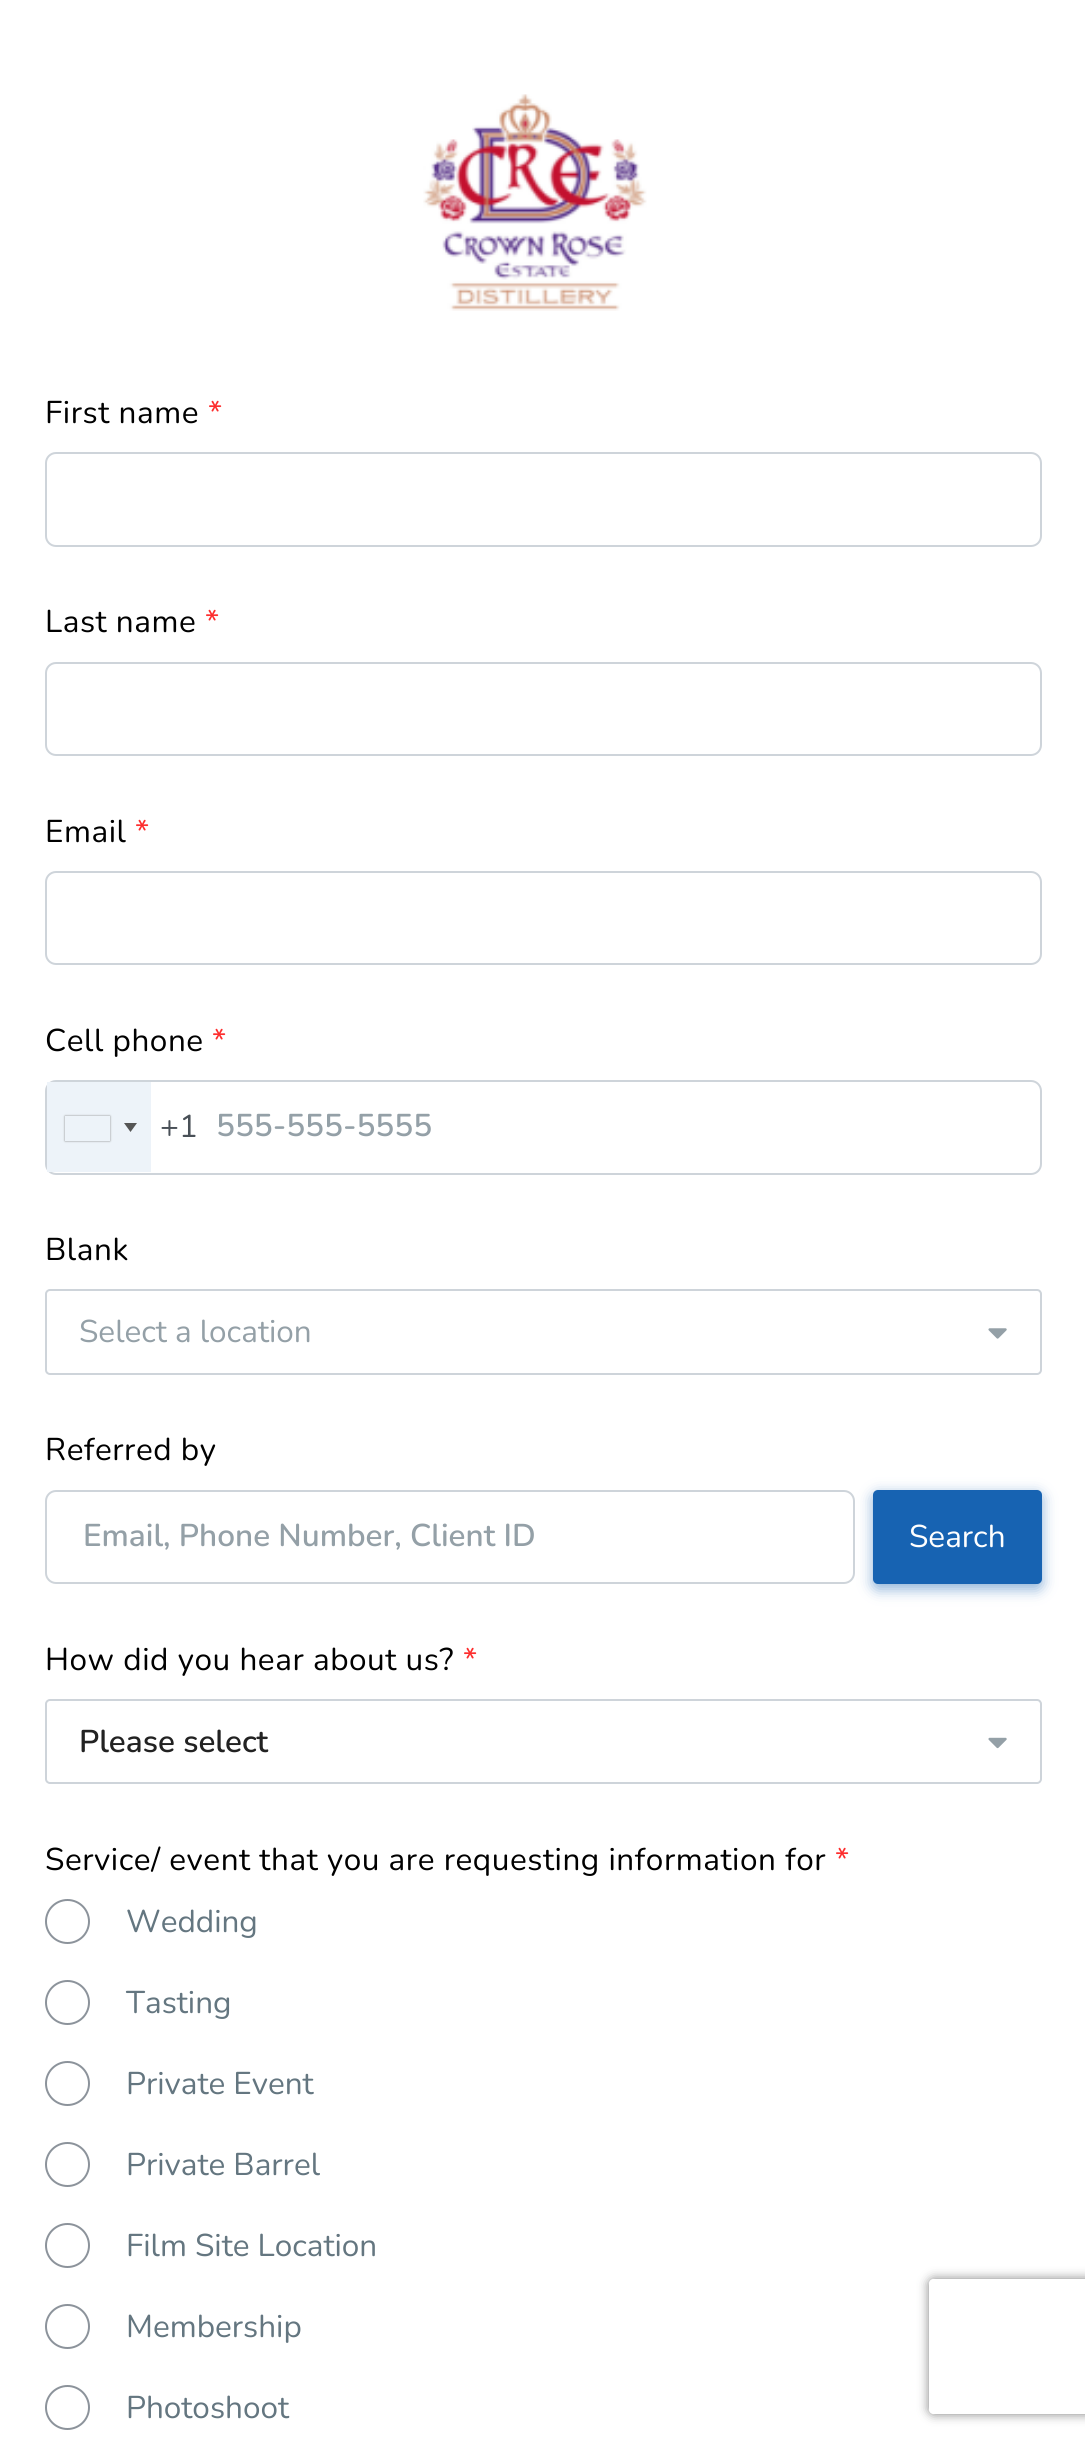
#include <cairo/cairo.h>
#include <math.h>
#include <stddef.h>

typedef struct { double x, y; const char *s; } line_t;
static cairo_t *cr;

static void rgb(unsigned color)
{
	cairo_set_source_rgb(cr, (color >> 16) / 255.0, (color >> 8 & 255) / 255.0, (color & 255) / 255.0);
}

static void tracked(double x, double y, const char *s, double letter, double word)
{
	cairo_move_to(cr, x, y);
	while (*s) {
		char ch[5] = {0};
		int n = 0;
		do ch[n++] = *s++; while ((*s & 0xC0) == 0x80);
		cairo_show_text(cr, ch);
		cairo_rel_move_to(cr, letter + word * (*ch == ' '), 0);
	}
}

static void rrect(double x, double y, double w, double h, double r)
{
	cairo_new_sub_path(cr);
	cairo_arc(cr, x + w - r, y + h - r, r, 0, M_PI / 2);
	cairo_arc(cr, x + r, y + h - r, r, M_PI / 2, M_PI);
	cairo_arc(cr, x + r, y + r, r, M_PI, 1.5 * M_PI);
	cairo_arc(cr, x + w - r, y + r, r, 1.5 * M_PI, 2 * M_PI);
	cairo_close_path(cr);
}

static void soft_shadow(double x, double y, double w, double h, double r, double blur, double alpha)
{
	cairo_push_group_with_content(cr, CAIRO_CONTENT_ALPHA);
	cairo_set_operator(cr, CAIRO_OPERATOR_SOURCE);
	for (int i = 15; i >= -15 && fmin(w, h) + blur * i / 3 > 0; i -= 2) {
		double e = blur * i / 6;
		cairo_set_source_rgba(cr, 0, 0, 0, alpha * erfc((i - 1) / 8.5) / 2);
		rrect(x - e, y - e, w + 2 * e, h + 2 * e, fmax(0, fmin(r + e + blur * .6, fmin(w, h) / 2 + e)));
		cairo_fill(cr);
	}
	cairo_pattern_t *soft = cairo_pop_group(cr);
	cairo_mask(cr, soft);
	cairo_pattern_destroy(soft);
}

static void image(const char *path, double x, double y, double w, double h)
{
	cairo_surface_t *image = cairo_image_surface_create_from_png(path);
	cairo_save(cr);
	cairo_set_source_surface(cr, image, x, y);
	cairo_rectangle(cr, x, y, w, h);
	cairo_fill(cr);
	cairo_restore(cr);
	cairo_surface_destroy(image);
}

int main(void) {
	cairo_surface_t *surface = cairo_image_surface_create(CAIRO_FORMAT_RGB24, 1085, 2444);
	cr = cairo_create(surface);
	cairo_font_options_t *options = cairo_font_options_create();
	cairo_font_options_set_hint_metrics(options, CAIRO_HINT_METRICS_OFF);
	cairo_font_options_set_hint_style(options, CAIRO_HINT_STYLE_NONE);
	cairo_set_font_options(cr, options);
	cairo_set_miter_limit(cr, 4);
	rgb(0xffffff);
	cairo_paint(cr);
	image("img/1.png", 423, 94, 224, 217);
	rrect(46, 453, 995, 93, 10);
	rgb(0xced4da);
	cairo_stroke(cr);
	rrect(46, 663, 995, 92, 10);
	cairo_stroke(cr);
	rrect(46, 872, 995, 92, 10);
	cairo_stroke(cr);
	rrect(46, 1081, 995, 93, 10);
	cairo_stroke(cr);
	rgb(0xedf3f9);
	cairo_rectangle(cr, 47, 1082, 104, 90);
	cairo_fill(cr);
	cairo_save(cr);
	cairo_set_fill_rule(cr, CAIRO_FILL_RULE_EVEN_ODD);
	cairo_new_path(cr);
	cairo_move_to(cr, 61, 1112);
	cairo_line_to(cr, 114, 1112);
	cairo_line_to(cr, 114, 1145);
	cairo_line_to(cr, 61, 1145);
	cairo_close_path(cr);
	cairo_move_to(cr, 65, 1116);
	cairo_line_to(cr, 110, 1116);
	cairo_line_to(cr, 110, 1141);
	cairo_line_to(cr, 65, 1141);
	cairo_close_path(cr);
	cairo_clip(cr);
	rgb(0x888888);
	soft_shadow(65, 1116, 45, 25, 0, 1, 1);
	cairo_restore(cr);
	rgb(0x555555);
	cairo_new_path(cr);
	cairo_move_to(cr, 124, 1123);
	cairo_line_to(cr, 137, 1123);
	cairo_line_to(cr, 130.5, 1132);
	cairo_close_path(cr);
	cairo_fill(cr);
	rrect(46, 1290, 995, 84, 4);
	rgb(0xced4da);
	cairo_stroke(cr);
	image("img/2.png", 988, 1328, 19, 11);
	rrect(46, 1491, 808, 92, 10);
	cairo_stroke(cr);
	rgb(0x1763b2);
	soft_shadow(873, 1494, 169, 95, 5, 7, 0.5);
	rgb(0x1763b2);
	rrect(873, 1490, 169, 94, 5);
	cairo_fill(cr);
	rrect(46, 1700, 995, 83, 4);
	rgb(0xced4da);
	cairo_stroke(cr);
	image("img/3.png", 988, 1737, 19, 12);
	cairo_arc(cr, 67.5, 1921.5, 21.5, 0, 2 * M_PI);
	rgb(0x8c939b);
	cairo_stroke(cr);
	cairo_arc(cr, 67.5, 2002.5, 21.5, 0, 2 * M_PI);
	cairo_stroke(cr);
	cairo_arc(cr, 67.5, 2083.5, 21.5, 0, 2 * M_PI);
	cairo_stroke(cr);
	cairo_arc(cr, 67.5, 2164.5, 21.5, 0, 2 * M_PI);
	cairo_stroke(cr);
	cairo_arc(cr, 67.5, 2245.5, 21.5, 0, 2 * M_PI);
	cairo_stroke(cr);
	cairo_arc(cr, 67.5, 2326.5, 21.5, 0, 2 * M_PI);
	cairo_stroke(cr);
	cairo_arc(cr, 67.5, 2407.5, 21.5, 0, 2 * M_PI);
	cairo_stroke(cr);
	cairo_save(cr);
	cairo_set_fill_rule(cr, CAIRO_FILL_RULE_EVEN_ODD);
	cairo_new_path(cr);
	cairo_move_to(cr, 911, 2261);
	cairo_line_to(cr, 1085, 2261);
	cairo_line_to(cr, 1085, 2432);
	cairo_line_to(cr, 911, 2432);
	cairo_close_path(cr);
	cairo_move_to(cr, 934, 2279);
	cairo_line_to(cr, 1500, 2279);
	cairo_curve_to(cr, 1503, 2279, 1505, 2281, 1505, 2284);
	cairo_line_to(cr, 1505, 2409);
	cairo_curve_to(cr, 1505, 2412, 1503, 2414, 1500, 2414);
	cairo_line_to(cr, 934, 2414);
	cairo_curve_to(cr, 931, 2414, 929, 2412, 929, 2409);
	cairo_line_to(cr, 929, 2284);
	cairo_curve_to(cr, 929, 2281, 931, 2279, 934, 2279);
	cairo_close_path(cr);
	cairo_clip(cr);
	rgb(0x808080);
	soft_shadow(929, 2279, 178, 135, 5, 5.5, 1);
	cairo_restore(cr);
	cairo_select_font_face(cr, "Nunito", CAIRO_FONT_SLANT_NORMAL, CAIRO_FONT_WEIGHT_NORMAL);
	cairo_set_font_size(cr, 31.5);
	rgb(0x000000);
	tracked(45, 423, "First name", 0.55, 0);
	rgb(0xfd2d2d);
	tracked(208, 423, "*", 0.55, 0);
	rgb(0x000000);
	tracked(45, 632, "Last name", 0.55, 0);
	rgb(0xfd2d2d);
	tracked(205, 632, "*", 0.55, 0);
	rgb(0x000000);
	tracked(45, 842, "Email", 0.55, 0);
	rgb(0xfd2d2d);
	tracked(135, 842, "*", 0.55, 0);
	rgb(0x000000);
	tracked(45, 1051, "Cell phone", 0.55, 0);
	rgb(0xfd2d2d);
	tracked(212, 1051, "*", 0.55, 0);
	rgb(0x495057);
	cairo_move_to(cr, 160, 1137);
	cairo_show_text(cr, "+1");
	cairo_select_font_face(cr, "Nunito SemiBold", CAIRO_FONT_SLANT_NORMAL, CAIRO_FONT_WEIGHT_NORMAL);
	rgb(0x94a0a7);
	cairo_move_to(cr, 216, 1136);
	cairo_show_text(cr, "555-555-5555");
	cairo_select_font_face(cr, "Nunito", CAIRO_FONT_SLANT_NORMAL, CAIRO_FONT_WEIGHT_NORMAL);
	rgb(0x000000);
	tracked(45, 1260, "Blank", 0.55, 0);
	rgb(0x94a0a7);
	cairo_move_to(cr, 79, 1342);
	cairo_show_text(cr, "Select a location");
	rgb(0x000000);
	tracked(45, 1460, "Referred by", 0.55, 0);
	cairo_select_font_face(cr, "Nunito SemiBold", CAIRO_FONT_SLANT_NORMAL, CAIRO_FONT_WEIGHT_NORMAL);
	rgb(0x94a0a7);
	cairo_move_to(cr, 83, 1546);
	cairo_show_text(cr, "Email, Phone Number, Client ID");
	cairo_select_font_face(cr, "Nunito", CAIRO_FONT_SLANT_NORMAL, CAIRO_FONT_WEIGHT_NORMAL);
	rgb(0xffffff);
	cairo_move_to(cr, 909, 1547);
	cairo_show_text(cr, "Search");
	rgb(0x000000);
	tracked(45, 1670, "How did you hear about us?", 0.55, 0);
	rgb(0xfd2d2d);
	tracked(463, 1670, "*", 0.55, 0);
	cairo_select_font_face(cr, "Nunito SemiBold", CAIRO_FONT_SLANT_NORMAL, CAIRO_FONT_WEIGHT_NORMAL);
	rgb(0x222222);
	cairo_move_to(cr, 79, 1752);
	cairo_show_text(cr, "Please select");
	cairo_select_font_face(cr, "Nunito", CAIRO_FONT_SLANT_NORMAL, CAIRO_FONT_WEIGHT_NORMAL);
	rgb(0x000000);
	tracked(45, 1870, "Service/ event that you are requesting information for", 0.55, 0);
	rgb(0xfd2d2d);
	tracked(835, 1870, "*", 0.55, 0);
	rgb(0x647680);
	{
		static const line_t items[] = {
			{126, 1932, "Wedding"},
			{126, 2013, "Tasting"},
			{126, 2094, "Private Event"},
			{126, 2175, "Private Barrel"},
			{126, 2256, "Film Site Location"},
			{126, 2337, "Membership"},
			{126, 2418, "Photoshoot"},
		};
		for (size_t i = 0; i < sizeof items / sizeof *items; i++) {
			cairo_move_to(cr, items[i].x, items[i].y);
			cairo_show_text(cr, items[i].s);
		}
	}
	cairo_surface_write_to_png(surface, "page.png");
	cairo_font_options_destroy(options);
	cairo_destroy(cr);
	cairo_surface_destroy(surface);
	return 0;
}
